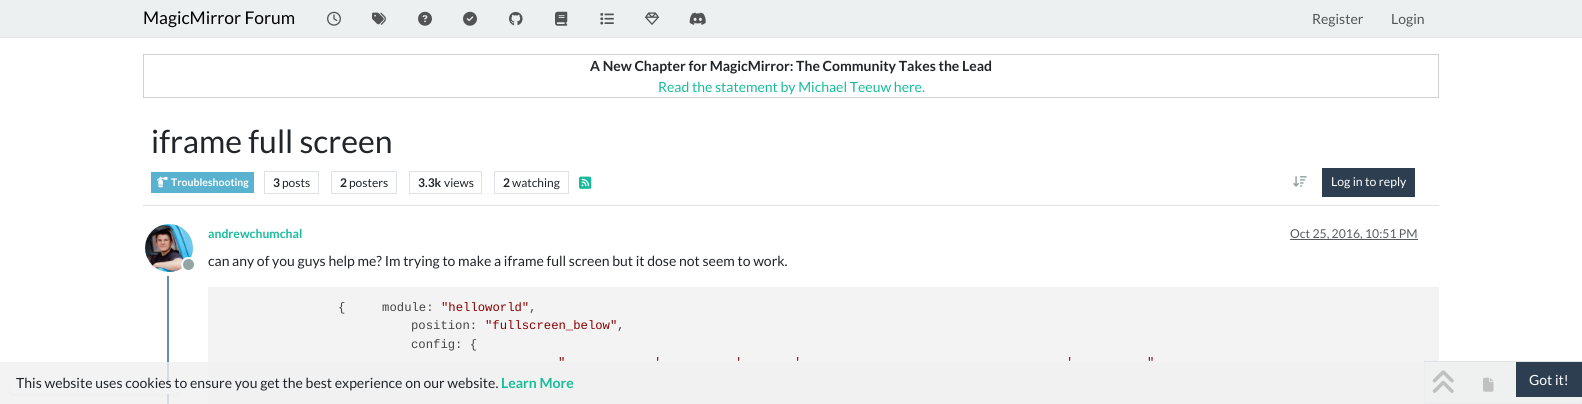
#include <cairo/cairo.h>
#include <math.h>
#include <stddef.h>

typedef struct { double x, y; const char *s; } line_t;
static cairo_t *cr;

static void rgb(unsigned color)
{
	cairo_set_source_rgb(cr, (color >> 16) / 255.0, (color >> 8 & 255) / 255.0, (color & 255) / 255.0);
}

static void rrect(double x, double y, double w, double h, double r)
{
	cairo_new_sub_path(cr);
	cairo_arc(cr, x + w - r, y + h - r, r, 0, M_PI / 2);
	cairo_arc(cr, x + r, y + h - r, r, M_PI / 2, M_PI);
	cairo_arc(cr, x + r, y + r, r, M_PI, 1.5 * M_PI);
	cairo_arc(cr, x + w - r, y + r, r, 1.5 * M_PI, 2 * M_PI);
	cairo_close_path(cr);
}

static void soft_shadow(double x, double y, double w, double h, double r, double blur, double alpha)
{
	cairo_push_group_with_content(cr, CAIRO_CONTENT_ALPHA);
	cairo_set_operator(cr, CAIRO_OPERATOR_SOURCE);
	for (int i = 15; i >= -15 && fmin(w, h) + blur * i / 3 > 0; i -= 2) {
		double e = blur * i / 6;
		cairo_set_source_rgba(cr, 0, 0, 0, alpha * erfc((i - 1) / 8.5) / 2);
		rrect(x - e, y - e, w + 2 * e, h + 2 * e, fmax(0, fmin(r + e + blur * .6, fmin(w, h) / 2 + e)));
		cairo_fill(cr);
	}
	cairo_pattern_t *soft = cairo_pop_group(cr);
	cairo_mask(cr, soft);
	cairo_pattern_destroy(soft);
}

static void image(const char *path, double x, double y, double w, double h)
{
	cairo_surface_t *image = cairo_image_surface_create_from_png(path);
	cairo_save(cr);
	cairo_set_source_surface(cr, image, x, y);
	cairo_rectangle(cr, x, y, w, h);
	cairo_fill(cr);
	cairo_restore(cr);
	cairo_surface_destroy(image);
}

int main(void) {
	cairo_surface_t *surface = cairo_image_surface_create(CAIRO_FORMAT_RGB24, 1582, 404);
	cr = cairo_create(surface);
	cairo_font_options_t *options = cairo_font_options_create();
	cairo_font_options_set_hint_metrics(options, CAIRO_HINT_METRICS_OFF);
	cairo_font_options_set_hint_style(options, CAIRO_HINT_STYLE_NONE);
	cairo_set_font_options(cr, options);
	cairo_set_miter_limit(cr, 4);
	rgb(0xffffff);
	cairo_paint(cr);
	rgb(0xecf0f1);
	cairo_rectangle(cr, 0, 0, 1582, 37);
	cairo_fill(cr);
	rgb(0xdee2e6);
	cairo_rectangle(cr, 0, 37, 1582, 1);
	cairo_fill(cr);
	image("img/1.png", 327, 11, 14, 15);
	image("img/2.png", 372, 12, 14, 13);
	image("img/3.png", 418, 11, 14, 15);
	image("img/4.png", 463, 11, 14, 15);
	image("img/5.png", 509, 12, 14, 14);
	image("img/6.png", 555, 11, 13, 15);
	image("img/7.png", 600, 13, 14, 12);
	image("img/8.png", 645, 12, 14, 13);
	image("img/9.png", 689, 12, 17, 13);
	cairo_rectangle(cr, 143.5, 54.5, 1295, 43);
	rgb(0xd3d3d3);
	cairo_set_line_width(cr, 1);
	cairo_stroke(cr);
	rgb(0xdee2e6);
	cairo_rectangle(cr, 143, 205, 1296, 1);
	cairo_fill(cr);
	rgb(0x59b3d0);
	cairo_rectangle(cr, 151, 172, 103, 21);
	cairo_fill(cr);
	image("img/10.png", 157, 176, 11, 12);
	cairo_rectangle(cr, 264.5, 171.5, 54, 22);
	rgb(0xdee2e6);
	cairo_stroke(cr);
	cairo_rectangle(cr, 331.5, 171.5, 65, 22);
	cairo_stroke(cr);
	cairo_rectangle(cr, 409.5, 171.5, 72, 22);
	cairo_stroke(cr);
	cairo_rectangle(cr, 494.5, 171.5, 74, 22);
	cairo_stroke(cr);
	image("img/11.png", 579, 176, 13, 13);
	image("img/12.png", 1293, 176, 14, 11);
	rgb(0x2c3e50);
	cairo_rectangle(cr, 1322, 168, 93, 29);
	cairo_fill(cr);
	rgb(0x698bac);
	cairo_rectangle(cr, 167, 222, 2, 182);
	cairo_fill(cr);
	cairo_arc(cr, 169, 248, 26, 0, 2 * M_PI);
	rgb(0xffffff);
	cairo_set_line_width(cr, 4);
	cairo_stroke(cr);
	image("img/13.png", 145, 224, 48, 48);
	rgb(0x95a5a6);
	cairo_arc(cr, 188.5, 264.5, 6.5, 0, 2 * M_PI);
	cairo_fill_preserve(cr);
	rgb(0xffffff);
	cairo_set_line_width(cr, 2);
	cairo_stroke(cr);
	rgb(0x595c5f);
	cairo_rectangle(cr, 1290, 239, 128, 1);
	cairo_fill(cr);
	rgb(0xf3f3f3);
	cairo_rectangle(cr, 208, 287, 1231, 117);
	cairo_fill(cr);
	rgb(0xecf0f1);
	cairo_rectangle(cr, 1424.5, 361.5, 157, 42);
	cairo_fill_preserve(cr);
	rgb(0xdee2e6);
	cairo_set_line_width(cr, 1);
	cairo_stroke(cr);
	image("img/14.png", 1432, 370, 22, 23);
	image("img/15.png", 1483, 377, 11, 15);
	rgb(0x000000);
	soft_shadow(10, 385, 170, 10, 5, 1.5, 0.1);
	rgb(0xffffff);
	rrect(10, 384, 170, 10, 5);
	cairo_fill(cr);
	cairo_set_source_rgba(cr, 0.941, 0.941, 0.941, 0.8);
	cairo_rectangle(cr, 0, 362, 1582, 42);
	cairo_fill(cr);
	rgb(0x2c3e50);
	cairo_rectangle(cr, 1516, 362, 66, 35);
	cairo_fill(cr);
	cairo_select_font_face(cr, "Lato", CAIRO_FONT_SLANT_NORMAL, CAIRO_FONT_WEIGHT_NORMAL);
	cairo_set_font_size(cr, 17.5);
	rgb(0x000000);
	cairo_move_to(cr, 143, 24);
	cairo_show_text(cr, "MagicMirror Forum");
	cairo_set_font_size(cr, 14);
	rgb(0x535454);
	cairo_move_to(cr, 1312, 24);
	cairo_show_text(cr, "Register");
	cairo_move_to(cr, 1391, 24);
	cairo_show_text(cr, "Login");
	cairo_select_font_face(cr, "Lato", CAIRO_FONT_SLANT_NORMAL, CAIRO_FONT_WEIGHT_BOLD);
	rgb(0x212529);
	cairo_move_to(cr, 590, 71);
	cairo_show_text(cr, "A New Chapter for MagicMirror: The Community Takes the Lead");
	cairo_select_font_face(cr, "Lato", CAIRO_FONT_SLANT_NORMAL, CAIRO_FONT_WEIGHT_NORMAL);
	rgb(0x18bc9c);
	cairo_move_to(cr, 658, 92);
	cairo_show_text(cr, "Read the statement by Michael Teeuw here.");
	cairo_set_font_size(cr, 32);
	rgb(0x212529);
	cairo_move_to(cr, 151, 153);
	cairo_show_text(cr, "iframe full screen");
	cairo_select_font_face(cr, "Lato", CAIRO_FONT_SLANT_NORMAL, CAIRO_FONT_WEIGHT_BOLD);
	cairo_set_font_size(cr, 10.5);
	rgb(0xffffff);
	cairo_move_to(cr, 171, 186);
	cairo_show_text(cr, "Troubleshooting");
	cairo_set_font_size(cr, 12);
	rgb(0x212529);
	cairo_move_to(cr, 273, 187);
	cairo_show_text(cr, "3");
	cairo_select_font_face(cr, "Lato", CAIRO_FONT_SLANT_NORMAL, CAIRO_FONT_WEIGHT_NORMAL);
	cairo_move_to(cr, 282, 187);
	cairo_show_text(cr, "posts");
	cairo_select_font_face(cr, "Lato", CAIRO_FONT_SLANT_NORMAL, CAIRO_FONT_WEIGHT_BOLD);
	cairo_move_to(cr, 340, 187);
	cairo_show_text(cr, "2");
	cairo_select_font_face(cr, "Lato", CAIRO_FONT_SLANT_NORMAL, CAIRO_FONT_WEIGHT_NORMAL);
	cairo_move_to(cr, 349, 187);
	cairo_show_text(cr, "posters");
	cairo_select_font_face(cr, "Lato", CAIRO_FONT_SLANT_NORMAL, CAIRO_FONT_WEIGHT_BOLD);
	cairo_move_to(cr, 418, 187);
	cairo_show_text(cr, "3.3k");
	cairo_select_font_face(cr, "Lato", CAIRO_FONT_SLANT_NORMAL, CAIRO_FONT_WEIGHT_NORMAL);
	cairo_move_to(cr, 444, 187);
	cairo_show_text(cr, "views");
	cairo_select_font_face(cr, "Lato", CAIRO_FONT_SLANT_NORMAL, CAIRO_FONT_WEIGHT_BOLD);
	cairo_move_to(cr, 503, 187);
	cairo_show_text(cr, "2");
	cairo_select_font_face(cr, "Lato", CAIRO_FONT_SLANT_NORMAL, CAIRO_FONT_WEIGHT_NORMAL);
	cairo_move_to(cr, 512, 187);
	cairo_show_text(cr, "watching");
	cairo_set_font_size(cr, 12.25);
	rgb(0xffffff);
	cairo_move_to(cr, 1331, 186);
	cairo_show_text(cr, "Log in to reply");
	cairo_select_font_face(cr, "Lato", CAIRO_FONT_SLANT_NORMAL, CAIRO_FONT_WEIGHT_BOLD);
	rgb(0x18bc9c);
	cairo_move_to(cr, 208, 238);
	cairo_show_text(cr, "andrewchumchal");
	cairo_select_font_face(cr, "Lato", CAIRO_FONT_SLANT_NORMAL, CAIRO_FONT_WEIGHT_NORMAL);
	rgb(0x585b5e);
	cairo_move_to(cr, 1290, 238);
	cairo_show_text(cr, "Oct 25, 2016, 10:51 PM");
	cairo_set_font_size(cr, 14);
	rgb(0x212529);
	cairo_move_to(cr, 208, 266);
	cairo_show_text(cr, "can any of you guys help me? Im trying to make a iframe full screen but it dose not seem to work.");
	cairo_select_font_face(cr, "Liberation Mono", CAIRO_FONT_SLANT_NORMAL, CAIRO_FONT_WEIGHT_NORMAL);
	cairo_set_font_size(cr, 12.25);
	rgb(0x444444);
	cairo_move_to(cr, 338, 311);
	cairo_show_text(cr, "{     module:");
	rgb(0x880000);
	cairo_move_to(cr, 441, 311);
	cairo_show_text(cr, "\"helloworld\"");
	rgb(0x444444);
	cairo_move_to(cr, 529, 311);
	cairo_show_text(cr, ",");
	cairo_move_to(cr, 411, 329);
	cairo_show_text(cr, "position:");
	rgb(0x880000);
	cairo_move_to(cr, 485, 329);
	cairo_show_text(cr, "\"fullscreen_below\"");
	rgb(0x444444);
	cairo_move_to(cr, 617, 329);
	cairo_show_text(cr, ",");
	cairo_move_to(cr, 411, 348);
	cairo_show_text(cr, "config: {");
	rgb(0x880000);
	{
		static const line_t items[] = {
			{558, 366, "\""},
			{654, 366, "'"},
			{735, 366, "'"},
			{794, 366, "'"},
			{1066, 366, "'"},
			{1147, 366, "\""},
		};
		for (size_t i = 0; i < sizeof items / sizeof *items; i++) {
			cairo_move_to(cr, items[i].x, items[i].y);
			cairo_show_text(cr, items[i].s);
		}
	}
	cairo_select_font_face(cr, "Lato", CAIRO_FONT_SLANT_NORMAL, CAIRO_FONT_WEIGHT_NORMAL);
	cairo_set_font_size(cr, 14);
	rgb(0x212529);
	cairo_move_to(cr, 16, 388);
	cairo_show_text(cr, "This website uses cookies to ensure you get the best experience on our website.");
	cairo_select_font_face(cr, "Lato", CAIRO_FONT_SLANT_NORMAL, CAIRO_FONT_WEIGHT_BOLD);
	rgb(0x18bc9c);
	cairo_move_to(cr, 501, 388);
	cairo_show_text(cr, "Learn More");
	cairo_select_font_face(cr, "Lato", CAIRO_FONT_SLANT_NORMAL, CAIRO_FONT_WEIGHT_NORMAL);
	rgb(0xffffff);
	cairo_move_to(cr, 1529, 385);
	cairo_show_text(cr, "Got it!");
	cairo_surface_write_to_png(surface, "page.png");
	cairo_font_options_destroy(options);
	cairo_destroy(cr);
	cairo_surface_destroy(surface);
	return 0;
}
